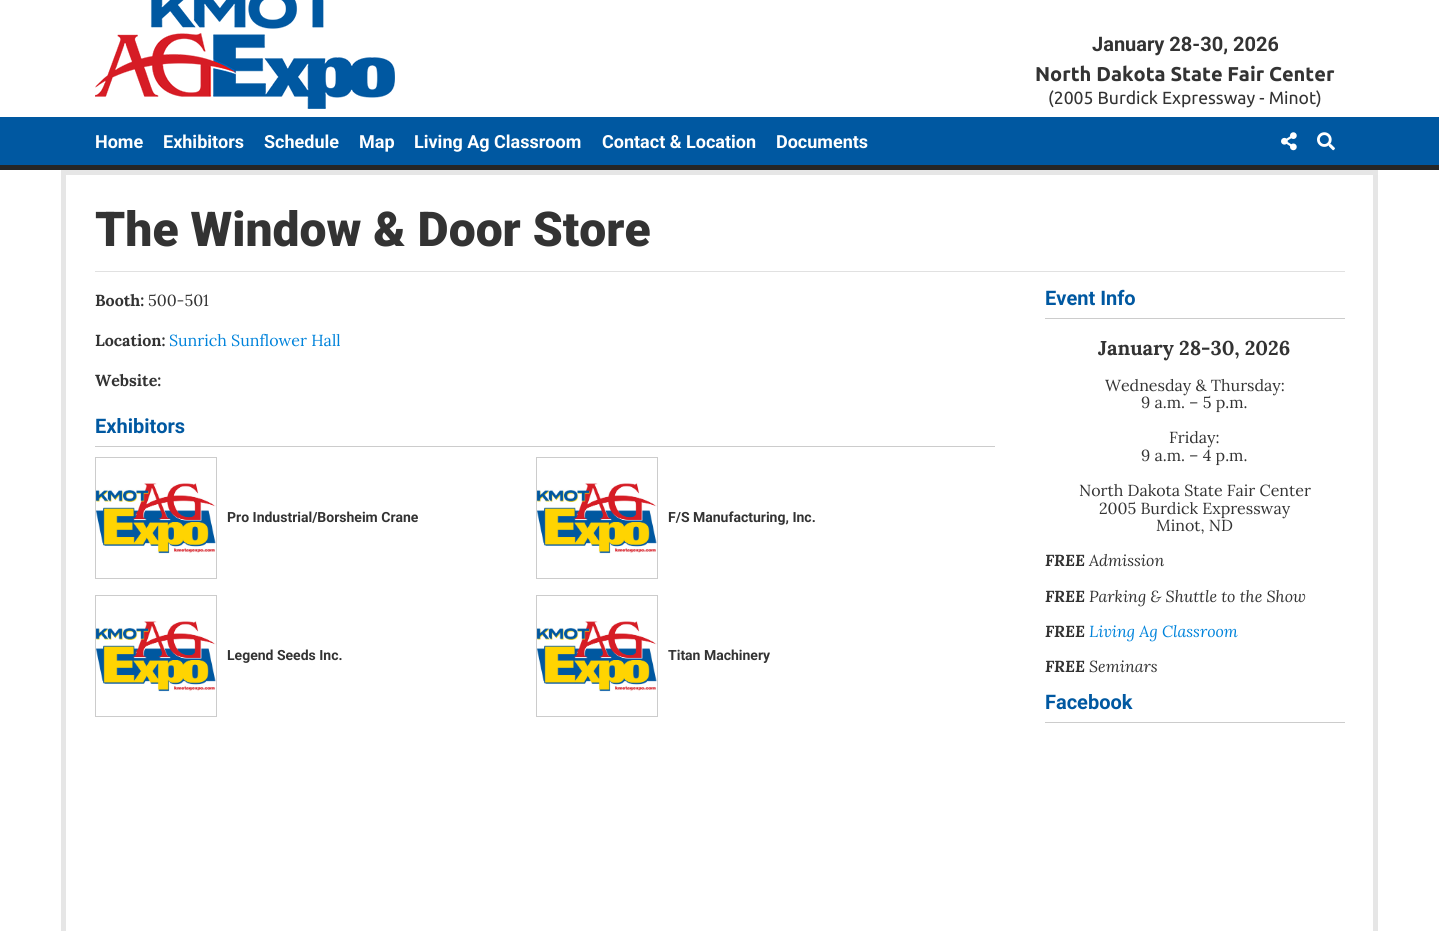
#include <cairo/cairo.h>
#include <math.h>
#include <stddef.h>

typedef struct { double x, y; const char *s; } line_t;
static cairo_t *cr;

static void rgb(unsigned color)
{
	cairo_set_source_rgb(cr, (color >> 16) / 255.0, (color >> 8 & 255) / 255.0, (color & 255) / 255.0);
}

static void image(const char *path, double x, double y, double w, double h)
{
	cairo_surface_t *image = cairo_image_surface_create_from_png(path);
	cairo_save(cr);
	cairo_set_source_surface(cr, image, x, y);
	cairo_rectangle(cr, x, y, w, h);
	cairo_fill(cr);
	cairo_restore(cr);
	cairo_surface_destroy(image);
}

int main(void) {
	cairo_surface_t *surface = cairo_image_surface_create(CAIRO_FORMAT_RGB24, 1439, 931);
	cr = cairo_create(surface);
	cairo_font_options_t *options = cairo_font_options_create();
	cairo_font_options_set_hint_metrics(options, CAIRO_HINT_METRICS_OFF);
	cairo_font_options_set_hint_style(options, CAIRO_HINT_STYLE_NONE);
	cairo_set_font_options(cr, options);
	cairo_set_miter_limit(cr, 4);
	rgb(0xffffff);
	cairo_paint(cr);
	image("img/1.png", 95, 0, 300, 109);
	rgb(0x0058a1);
	cairo_rectangle(cr, 0, 117, 1439, 48);
	cairo_fill(cr);
	rgb(0x262626);
	cairo_rectangle(cr, 0, 165, 1439, 5);
	cairo_fill(cr);
	image("img/2.png", 1281, 132, 16, 19);
	image("img/3.png", 1317, 132, 18, 19);
	cairo_rectangle(cr, 63.5, 172.5, 1312, 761);
	rgb(0xe6e6e6);
	cairo_set_line_width(cr, 5);
	cairo_stroke(cr);
	rgb(0xe1e1e1);
	cairo_rectangle(cr, 95, 271, 1250, 1);
	cairo_fill(cr);
	rgb(0xcccccc);
	cairo_rectangle(cr, 95, 446, 900, 1);
	cairo_fill(cr);
	cairo_rectangle(cr, 95.5, 457.5, 121, 121);
	cairo_set_line_width(cr, 1);
	cairo_stroke(cr);
	image("img/4.png", 96, 483, 120, 71);
	cairo_rectangle(cr, 536.5, 457.5, 121, 121);
	cairo_stroke(cr);
	image("img/4.png", 537, 483, 120, 71);
	cairo_rectangle(cr, 95.5, 595.5, 121, 121);
	cairo_stroke(cr);
	image("img/4.png", 96, 621, 120, 71);
	cairo_rectangle(cr, 536.5, 595.5, 121, 121);
	cairo_stroke(cr);
	image("img/4.png", 537, 621, 120, 71);
	cairo_rectangle(cr, 1045, 318, 300, 1);
	cairo_fill(cr);
	cairo_rectangle(cr, 1045, 722, 300, 1);
	cairo_fill(cr);
	cairo_select_font_face(cr, "Roboto", CAIRO_FONT_SLANT_NORMAL, CAIRO_FONT_WEIGHT_BOLD);
	cairo_set_font_size(cr, 20);
	rgb(0x333333);
	cairo_move_to(cr, 1092, 51);
	cairo_show_text(cr, "January 28-30, 2026");
	cairo_select_font_face(cr, "Ubuntu", CAIRO_FONT_SLANT_NORMAL, CAIRO_FONT_WEIGHT_BOLD);
	cairo_move_to(cr, 1035, 81);
	cairo_show_text(cr, "North Dakota State Fair Center");
	cairo_select_font_face(cr, "Ubuntu", CAIRO_FONT_SLANT_NORMAL, CAIRO_FONT_WEIGHT_NORMAL);
	cairo_set_font_size(cr, 17.6);
	cairo_move_to(cr, 1048, 104);
	cairo_show_text(cr, "(2005 Burdick Expressway - Minot)");
	cairo_select_font_face(cr, "Roboto", CAIRO_FONT_SLANT_NORMAL, CAIRO_FONT_WEIGHT_BOLD);
	cairo_set_font_size(cr, 18);
	rgb(0xffffff);
	{
		static const line_t items[] = {
			{95, 148, "Home"},
			{163, 148, "Exhibitors"},
			{264, 148, "Schedule"},
			{359, 148, "Map"},
			{414, 148, "Living Ag Classroom"},
			{602, 148, "Contact & Location"},
			{776, 148, "Documents"},
		};
		for (size_t i = 0; i < sizeof items / sizeof *items; i++) {
			cairo_move_to(cr, items[i].x, items[i].y);
			cairo_show_text(cr, items[i].s);
		}
	}
	cairo_select_font_face(cr, "Roboto Black", CAIRO_FONT_SLANT_NORMAL, CAIRO_FONT_WEIGHT_NORMAL);
	cairo_set_font_size(cr, 48);
	rgb(0x333333);
	cairo_move_to(cr, 95, 246);
	cairo_show_text(cr, "The Window & Door Store");
	cairo_select_font_face(cr, "Lora", CAIRO_FONT_SLANT_NORMAL, CAIRO_FONT_WEIGHT_BOLD);
	cairo_set_font_size(cr, 16);
	cairo_move_to(cr, 95, 306);
	cairo_show_text(cr, "Booth:");
	cairo_select_font_face(cr, "Lora", CAIRO_FONT_SLANT_NORMAL, CAIRO_FONT_WEIGHT_NORMAL);
	cairo_move_to(cr, 148, 306);
	cairo_show_text(cr, "500-501");
	cairo_select_font_face(cr, "Lora", CAIRO_FONT_SLANT_NORMAL, CAIRO_FONT_WEIGHT_BOLD);
	cairo_move_to(cr, 95, 346);
	cairo_show_text(cr, "Location:");
	cairo_select_font_face(cr, "Lora", CAIRO_FONT_SLANT_NORMAL, CAIRO_FONT_WEIGHT_NORMAL);
	rgb(0x0083db);
	cairo_move_to(cr, 169, 346);
	cairo_show_text(cr, "Sunrich Sunflower Hall");
	cairo_select_font_face(cr, "Lora", CAIRO_FONT_SLANT_NORMAL, CAIRO_FONT_WEIGHT_BOLD);
	rgb(0x333333);
	cairo_move_to(cr, 95, 386);
	cairo_show_text(cr, "Website:");
	cairo_select_font_face(cr, "Roboto", CAIRO_FONT_SLANT_NORMAL, CAIRO_FONT_WEIGHT_BOLD);
	cairo_set_font_size(cr, 20);
	rgb(0x0058a1);
	cairo_move_to(cr, 95, 433);
	cairo_show_text(cr, "Exhibitors");
	cairo_set_font_size(cr, 14);
	rgb(0x333333);
	{
		static const line_t items[] = {
			{227, 522, "Pro Industrial/Borsheim Crane"},
			{668, 522, "F/S Manufacturing, Inc."},
			{227, 660, "Legend Seeds Inc."},
			{668, 660, "Titan Machinery"},
		};
		for (size_t i = 0; i < sizeof items / sizeof *items; i++) {
			cairo_move_to(cr, items[i].x, items[i].y);
			cairo_show_text(cr, items[i].s);
		}
	}
	cairo_set_font_size(cr, 20);
	rgb(0x0058a1);
	cairo_move_to(cr, 1045, 305);
	cairo_show_text(cr, "Event Info");
	cairo_select_font_face(cr, "Lora", CAIRO_FONT_SLANT_NORMAL, CAIRO_FONT_WEIGHT_BOLD);
	rgb(0x333333);
	cairo_move_to(cr, 1098, 355);
	cairo_show_text(cr, "January 28-30, 2026");
	cairo_select_font_face(cr, "Lora", CAIRO_FONT_SLANT_NORMAL, CAIRO_FONT_WEIGHT_NORMAL);
	cairo_set_font_size(cr, 16);
	{
		static const line_t items[] = {
			{1105, 391, "Wednesday & Thursday:"},
			{1141, 408, "9 a.m. – 5 p.m."},
			{1169, 443, "Friday:"},
			{1141, 461, "9 a.m. – 4 p.m."},
			{1079, 496, "North Dakota State Fair Center"},
			{1099, 514, "2005 Burdick Expressway"},
			{1156, 531, "Minot, ND"},
		};
		for (size_t i = 0; i < sizeof items / sizeof *items; i++) {
			cairo_move_to(cr, items[i].x, items[i].y);
			cairo_show_text(cr, items[i].s);
		}
	}
	cairo_select_font_face(cr, "Lora", CAIRO_FONT_SLANT_ITALIC, CAIRO_FONT_WEIGHT_BOLD);
	cairo_move_to(cr, 1045, 566);
	cairo_show_text(cr, "FREE");
	cairo_select_font_face(cr, "Lora", CAIRO_FONT_SLANT_ITALIC, CAIRO_FONT_WEIGHT_NORMAL);
	cairo_move_to(cr, 1089, 566);
	cairo_show_text(cr, "Admission");
	cairo_select_font_face(cr, "Lora", CAIRO_FONT_SLANT_ITALIC, CAIRO_FONT_WEIGHT_BOLD);
	cairo_move_to(cr, 1045, 602);
	cairo_show_text(cr, "FREE");
	cairo_select_font_face(cr, "Lora", CAIRO_FONT_SLANT_ITALIC, CAIRO_FONT_WEIGHT_NORMAL);
	cairo_move_to(cr, 1089, 602);
	cairo_show_text(cr, "Parking & Shuttle to the Show");
	cairo_select_font_face(cr, "Lora", CAIRO_FONT_SLANT_ITALIC, CAIRO_FONT_WEIGHT_BOLD);
	cairo_move_to(cr, 1045, 637);
	cairo_show_text(cr, "FREE");
	cairo_select_font_face(cr, "Lora", CAIRO_FONT_SLANT_ITALIC, CAIRO_FONT_WEIGHT_NORMAL);
	rgb(0x0083db);
	cairo_move_to(cr, 1089, 637);
	cairo_show_text(cr, "Living Ag Classroom");
	cairo_select_font_face(cr, "Lora", CAIRO_FONT_SLANT_ITALIC, CAIRO_FONT_WEIGHT_BOLD);
	rgb(0x333333);
	cairo_move_to(cr, 1045, 672);
	cairo_show_text(cr, "FREE");
	cairo_select_font_face(cr, "Lora", CAIRO_FONT_SLANT_ITALIC, CAIRO_FONT_WEIGHT_NORMAL);
	cairo_move_to(cr, 1089, 672);
	cairo_show_text(cr, "Seminars");
	cairo_select_font_face(cr, "Roboto", CAIRO_FONT_SLANT_NORMAL, CAIRO_FONT_WEIGHT_BOLD);
	cairo_set_font_size(cr, 20);
	rgb(0x0058a1);
	cairo_move_to(cr, 1045, 709);
	cairo_show_text(cr, "Facebook");
	cairo_surface_write_to_png(surface, "page.png");
	cairo_font_options_destroy(options);
	cairo_destroy(cr);
	cairo_surface_destroy(surface);
	return 0;
}
